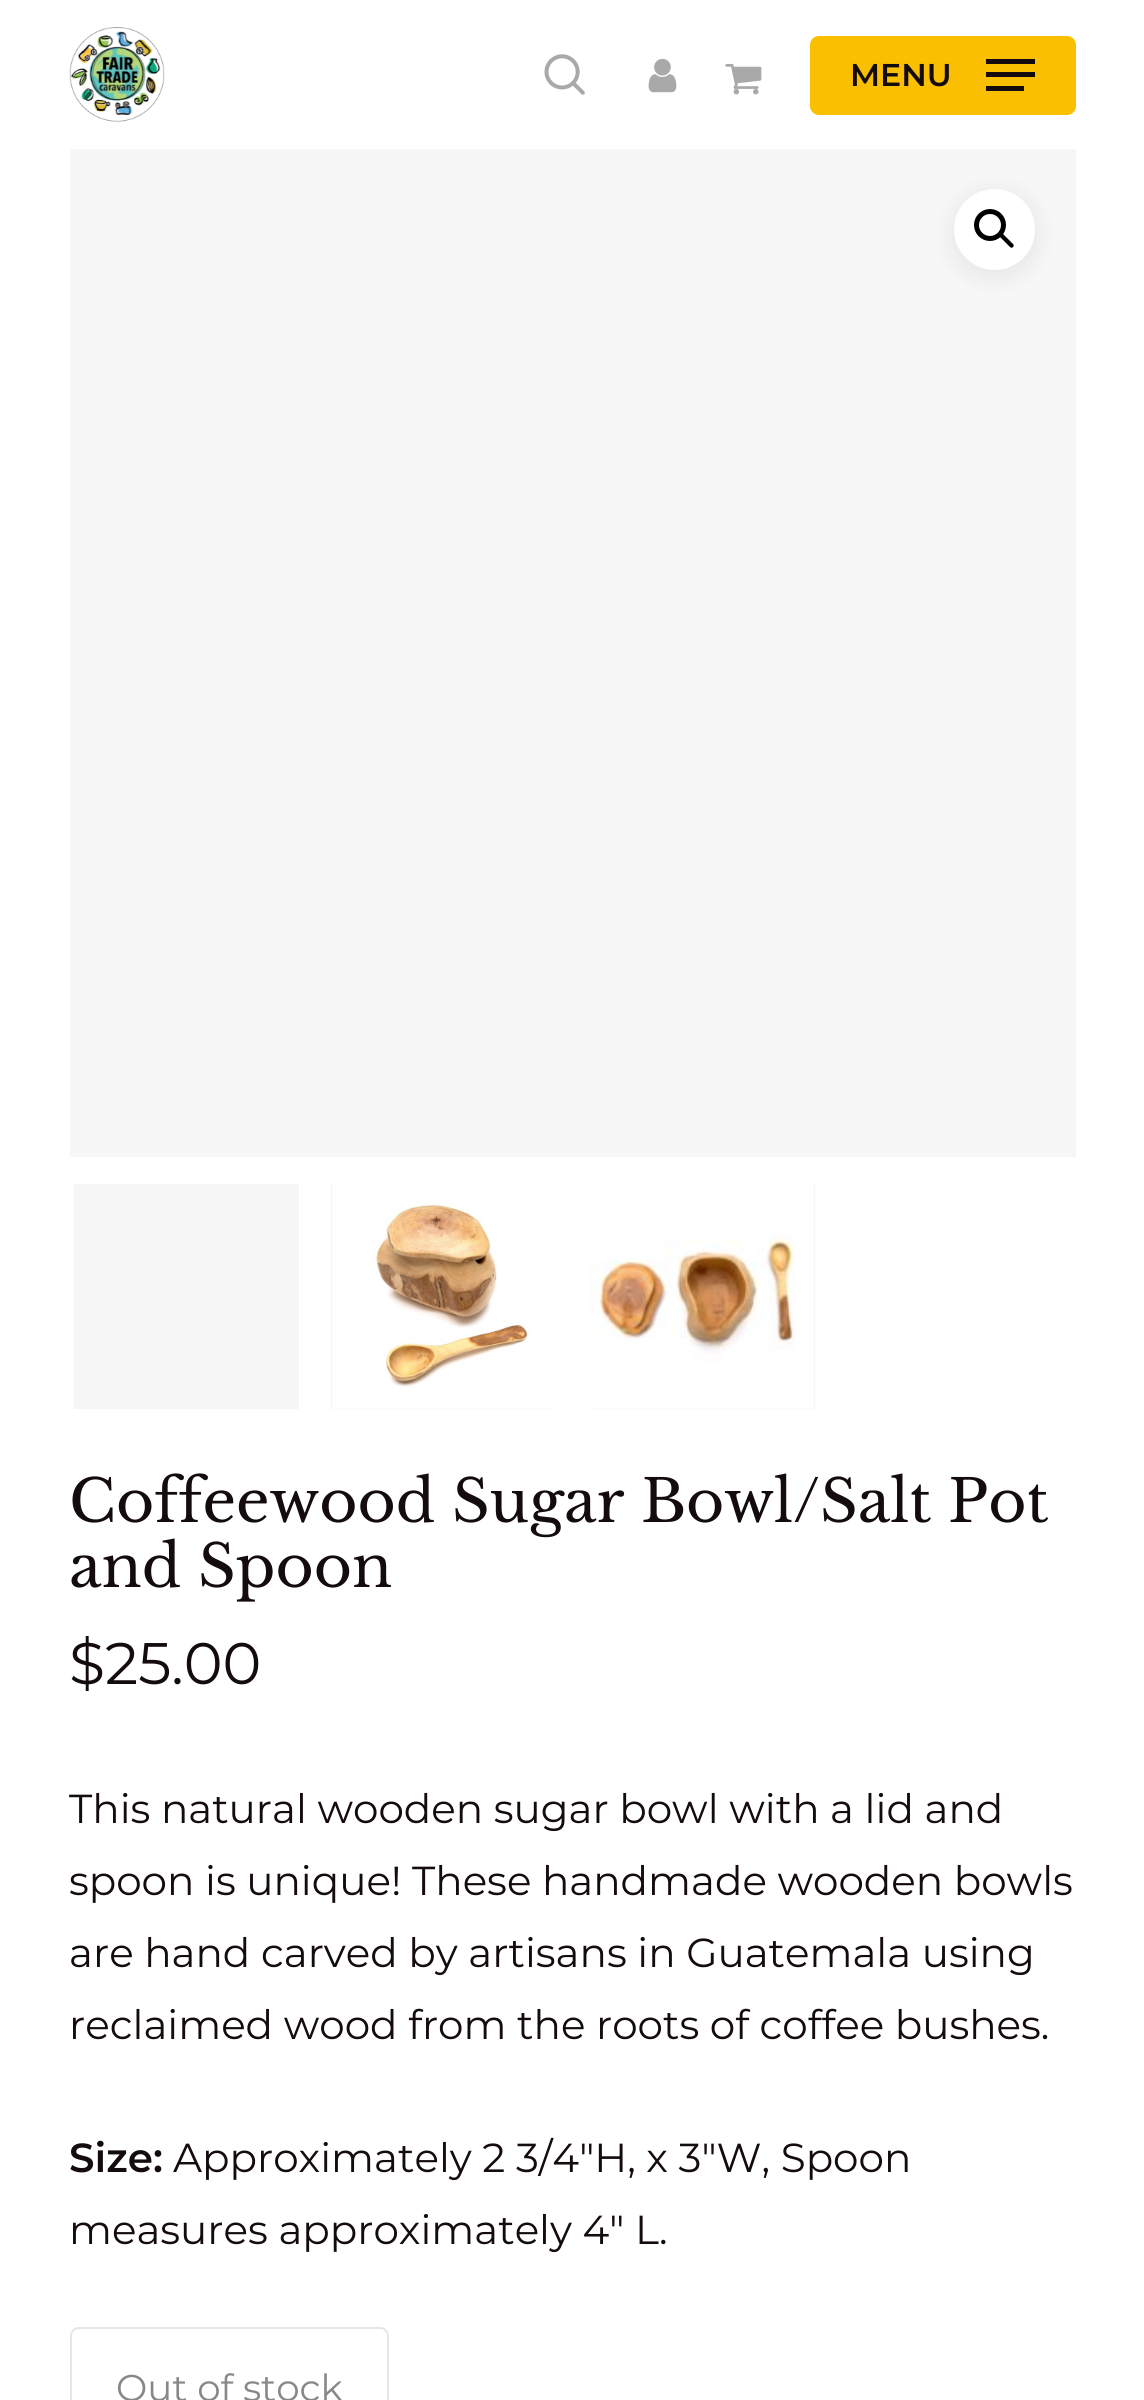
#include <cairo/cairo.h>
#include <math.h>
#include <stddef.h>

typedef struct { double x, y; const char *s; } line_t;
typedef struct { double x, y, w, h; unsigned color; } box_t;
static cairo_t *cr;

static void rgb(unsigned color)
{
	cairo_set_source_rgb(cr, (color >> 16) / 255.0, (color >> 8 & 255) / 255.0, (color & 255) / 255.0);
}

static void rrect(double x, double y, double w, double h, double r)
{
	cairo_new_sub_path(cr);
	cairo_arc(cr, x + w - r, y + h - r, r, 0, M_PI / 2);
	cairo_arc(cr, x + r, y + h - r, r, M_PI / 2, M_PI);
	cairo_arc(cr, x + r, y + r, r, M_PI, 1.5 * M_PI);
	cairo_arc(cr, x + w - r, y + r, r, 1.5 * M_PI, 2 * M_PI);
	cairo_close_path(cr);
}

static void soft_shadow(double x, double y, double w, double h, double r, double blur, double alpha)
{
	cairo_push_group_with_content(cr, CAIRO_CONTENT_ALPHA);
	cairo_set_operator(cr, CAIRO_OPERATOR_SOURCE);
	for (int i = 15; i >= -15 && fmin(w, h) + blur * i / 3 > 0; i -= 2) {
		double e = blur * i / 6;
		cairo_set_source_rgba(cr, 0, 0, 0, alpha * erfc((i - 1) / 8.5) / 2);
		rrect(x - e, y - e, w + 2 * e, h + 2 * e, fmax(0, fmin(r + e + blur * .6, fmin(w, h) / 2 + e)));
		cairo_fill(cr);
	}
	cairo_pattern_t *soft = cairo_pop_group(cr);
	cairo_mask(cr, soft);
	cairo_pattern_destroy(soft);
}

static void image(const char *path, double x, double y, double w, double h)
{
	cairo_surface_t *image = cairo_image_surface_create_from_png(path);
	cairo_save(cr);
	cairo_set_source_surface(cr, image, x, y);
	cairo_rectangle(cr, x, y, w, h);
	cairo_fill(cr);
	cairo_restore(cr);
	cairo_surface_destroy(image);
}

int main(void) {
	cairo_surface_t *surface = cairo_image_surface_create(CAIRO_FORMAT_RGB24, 1144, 2400);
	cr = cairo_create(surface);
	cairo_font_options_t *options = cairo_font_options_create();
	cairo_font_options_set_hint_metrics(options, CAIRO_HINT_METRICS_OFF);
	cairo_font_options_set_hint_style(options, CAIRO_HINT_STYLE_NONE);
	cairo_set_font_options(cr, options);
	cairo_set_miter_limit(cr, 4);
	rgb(0xffffff);
	cairo_paint(cr);
	image("img/1.png", 69, 27, 96, 95);
	image("img/2.png", 544, 54, 41, 41);
	image("img/3.png", 648, 58, 29, 35);
	image("img/4.png", 725, 63, 37, 32);
	rgb(0xf9bf00);
	rrect(810, 36, 266, 79, 9);
	cairo_fill(cr);
	{
		static const box_t items[] = {
			{986, 59, 49, 5, 0x130b0d},
			{986, 86, 38, 5, 0x130b0d},
			{986, 72, 49, 5, 0x130b0d},
			{70, 149, 1006, 1008, 0xf7f7f7},
		};
		for (size_t i = 0; i < sizeof items / sizeof *items; i++) {
			rgb(items[i].color);
			cairo_rectangle(cr, items[i].x, items[i].y, items[i].w, items[i].h);
			cairo_fill(cr);
		}
	}
	rgb(0x000000);
	soft_shadow(954, 194, 81, 81, 40.5, 13.5, 0.08);
	rgb(0xffffff);
	cairo_arc(cr, 994.5, 229.5, 40.5, 0, 2 * M_PI);
	cairo_fill(cr);
	cairo_arc(cr, 990, 225, 13.5, 0, 2 * M_PI);
	rgb(0x000000);
	cairo_set_line_width(cr, 5);
	cairo_stroke(cr);
	cairo_new_path(cr);
	cairo_move_to(cr, 1000.5, 234.5);
	cairo_curve_to(cr, 1001.5, 233.5, 1002.5, 233.5, 1003.5, 234.5);
	cairo_line_to(cr, 1013, 244);
	cairo_curve_to(cr, 1014, 245, 1014, 246, 1013, 247);
	cairo_curve_to(cr, 1012.5, 248, 1011, 248, 1010, 247);
	cairo_line_to(cr, 1000.5, 237.5);
	cairo_curve_to(cr, 999.5, 236.5, 999.5, 235.5, 1000.5, 234.5);
	cairo_close_path(cr);
	cairo_fill(cr);
	rgb(0xf6f6f6);
	cairo_rectangle(cr, 74, 1184, 225, 225);
	cairo_fill(cr);
	cairo_rectangle(cr, 331, 1184, 225, 225);
	cairo_fill(cr);
	image("img/5.png", 332, 1184, 224, 225);
	cairo_rectangle(cr, 590, 1184, 225, 225);
	cairo_fill(cr);
	image("img/6.png", 589, 1184, 225, 225);
	rrect(71, 2328, 317, 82, 8);
	rgb(0xe6e6e6);
	cairo_set_line_width(cr, 2);
	cairo_stroke(cr);
	cairo_select_font_face(cr, "Montserrat SemiBold", CAIRO_FONT_SLANT_NORMAL, CAIRO_FONT_WEIGHT_NORMAL);
	cairo_set_font_size(cr, 31.5);
	rgb(0x130b0d);
	cairo_move_to(cr, 850, 86);
	cairo_show_text(cr, "MENU");
	cairo_select_font_face(cr, "Libre Baskerville", CAIRO_FONT_SLANT_NORMAL, CAIRO_FONT_WEIGHT_NORMAL);
	cairo_set_font_size(cr, 58.5);
	cairo_move_to(cr, 69, 1522);
	cairo_show_text(cr, "Coffeewood Sugar Bowl/Salt Pot");
	cairo_move_to(cr, 69, 1587);
	cairo_show_text(cr, "and Spoon");
	cairo_select_font_face(cr, "Montserrat", CAIRO_FONT_SLANT_NORMAL, CAIRO_FONT_WEIGHT_NORMAL);
	cairo_move_to(cr, 69, 1684);
	cairo_show_text(cr, "$25.00");
	cairo_set_font_size(cr, 40.5);
	{
		static const line_t items[] = {
			{69, 1823, "This natural wooden sugar bowl with a lid and"},
			{69, 1895, "spoon is unique! These handmade wooden bowls"},
			{69, 1967, "are hand carved by artisans in Guatemala using"},
			{69, 2039, "reclaimed wood from the roots of coffee bushes."},
		};
		for (size_t i = 0; i < sizeof items / sizeof *items; i++) {
			cairo_move_to(cr, items[i].x, items[i].y);
			cairo_show_text(cr, items[i].s);
		}
	}
	cairo_select_font_face(cr, "Montserrat SemiBold", CAIRO_FONT_SLANT_NORMAL, CAIRO_FONT_WEIGHT_NORMAL);
	cairo_move_to(cr, 69, 2172);
	cairo_show_text(cr, "Size:");
	cairo_select_font_face(cr, "Montserrat", CAIRO_FONT_SLANT_NORMAL, CAIRO_FONT_WEIGHT_NORMAL);
	cairo_move_to(cr, 173, 2172);
	cairo_show_text(cr, "Approximately 2 3/4″H, x 3″W, Spoon");
	cairo_move_to(cr, 69, 2244);
	cairo_show_text(cr, "measures approximately 4″ L.");
	cairo_set_font_size(cr, 37.25);
	rgb(0x888888);
	cairo_move_to(cr, 116, 2401);
	cairo_show_text(cr, "Out of stock");
	cairo_surface_write_to_png(surface, "page.png");
	cairo_font_options_destroy(options);
	cairo_destroy(cr);
	cairo_surface_destroy(surface);
	return 0;
}
